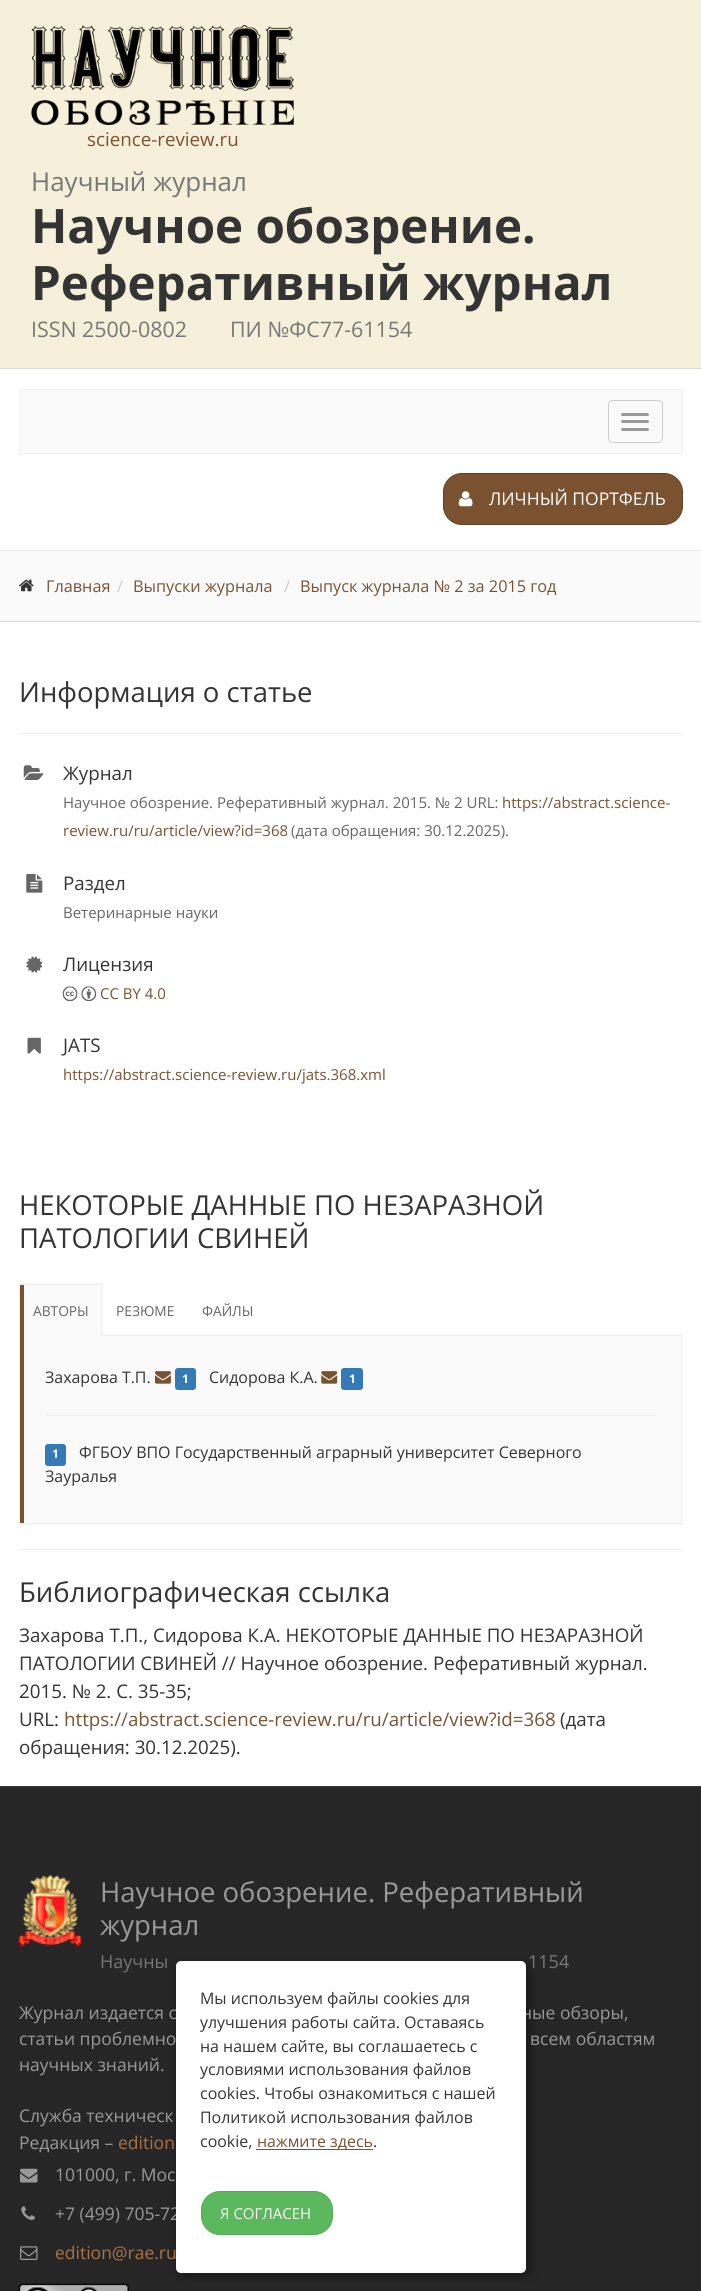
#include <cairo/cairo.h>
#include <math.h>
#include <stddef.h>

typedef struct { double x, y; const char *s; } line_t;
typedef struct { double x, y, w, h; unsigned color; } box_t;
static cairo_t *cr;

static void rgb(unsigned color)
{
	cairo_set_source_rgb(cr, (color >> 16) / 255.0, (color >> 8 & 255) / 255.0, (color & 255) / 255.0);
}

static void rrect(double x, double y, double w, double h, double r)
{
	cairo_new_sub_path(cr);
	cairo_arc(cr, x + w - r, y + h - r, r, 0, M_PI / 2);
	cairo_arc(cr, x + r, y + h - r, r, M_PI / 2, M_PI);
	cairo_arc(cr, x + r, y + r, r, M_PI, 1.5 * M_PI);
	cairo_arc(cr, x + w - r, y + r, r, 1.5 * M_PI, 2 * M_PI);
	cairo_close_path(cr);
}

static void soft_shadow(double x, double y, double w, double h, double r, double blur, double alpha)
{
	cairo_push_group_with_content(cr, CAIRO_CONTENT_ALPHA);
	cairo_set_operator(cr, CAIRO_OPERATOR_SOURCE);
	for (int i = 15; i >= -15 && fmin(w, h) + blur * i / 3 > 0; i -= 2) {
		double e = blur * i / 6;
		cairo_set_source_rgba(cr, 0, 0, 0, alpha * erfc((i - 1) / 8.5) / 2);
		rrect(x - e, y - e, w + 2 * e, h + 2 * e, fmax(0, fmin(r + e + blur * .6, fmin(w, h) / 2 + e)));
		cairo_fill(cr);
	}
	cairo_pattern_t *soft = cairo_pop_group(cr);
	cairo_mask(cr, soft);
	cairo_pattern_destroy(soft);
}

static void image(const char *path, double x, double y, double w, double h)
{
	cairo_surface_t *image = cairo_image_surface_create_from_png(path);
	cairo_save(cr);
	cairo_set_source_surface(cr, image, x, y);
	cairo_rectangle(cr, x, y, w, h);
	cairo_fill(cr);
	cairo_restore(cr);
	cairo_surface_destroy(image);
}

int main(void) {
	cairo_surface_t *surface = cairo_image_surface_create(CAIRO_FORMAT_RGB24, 701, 2291);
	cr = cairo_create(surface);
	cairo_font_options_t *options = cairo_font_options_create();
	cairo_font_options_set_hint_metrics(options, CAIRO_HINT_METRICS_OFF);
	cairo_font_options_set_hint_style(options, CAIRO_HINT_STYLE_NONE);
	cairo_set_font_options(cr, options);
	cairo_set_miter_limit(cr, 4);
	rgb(0xffffff);
	cairo_paint(cr);
	rgb(0xf6f0da);
	cairo_rectangle(cr, 0, 0, 701, 368);
	cairo_fill(cr);
	rgb(0xdadada);
	cairo_rectangle(cr, 0, 368, 701, 1);
	cairo_fill(cr);
	image("img/1.png", 31, 25, 263, 100);
	rgb(0xeaeaea);
	cairo_rectangle(cr, 0, 550, 701, 1);
	cairo_fill(cr);
	rgb(0xfafafa);
	cairo_rectangle(cr, 19.5, 389.5, 663, 64);
	cairo_fill_preserve(cr);
	rgb(0xf1f1f1);
	cairo_set_line_width(cr, 1);
	cairo_stroke(cr);
	rrect(608.5, 400.5, 54, 42, 4.5);
	rgb(0xcccccc);
	cairo_stroke(cr);
	rgb(0x999999);
	rrect(621, 413, 28, 3, 1.5);
	cairo_fill(cr);
	rrect(621, 420, 28, 3, 1.5);
	cairo_fill(cr);
	rrect(621, 428, 28, 3, 1.5);
	cairo_fill(cr);
	rgb(0x7a5230);
	rrect(443.5, 473.5, 239, 51, 18.5);
	cairo_fill_preserve(cr);
	rgb(0x614126);
	cairo_stroke(cr);
	image("img/2.png", 458, 491, 15, 16);
	rgb(0xfafafa);
	cairo_rectangle(cr, 0, 551, 701, 72);
	cairo_fill(cr);
	rgb(0xdadada);
	cairo_rectangle(cr, 0, 621, 701, 1);
	cairo_fill(cr);
	image("img/3.png", 19, 579, 15, 13);
	rgb(0xeeeeee);
	cairo_rectangle(cr, 19, 733, 664, 1);
	cairo_fill(cr);
	image("img/4.png", 23, 765, 21, 15);
	image("img/5.png", 26, 873, 17, 20);
	image("img/6.png", 26, 956, 17, 17);
	image("img/7.png", 62, 986, 16, 16);
	image("img/8.png", 81, 986, 16, 16);
	image("img/9.png", 27, 1037, 14, 17);
	rgb(0xf5f5f5);
	cairo_rectangle(cr, 103, 1334, 580, 1);
	cairo_fill(cr);
	rgb(0xf0f0f0);
	cairo_rectangle(cr, 103, 1335, 580, 1);
	cairo_fill(cr);
	rgb(0x000000);
	soft_shadow(19, 1283, 84, 52, 0, 0.5, 0.04);
	rgb(0xfafafa);
	cairo_rectangle(cr, 19, 1285, 84, 51);
	cairo_fill(cr);
	rgb(0xf0f0f0);
	cairo_rectangle(cr, 19, 1284, 84, 1);
	cairo_fill(cr);
	cairo_new_path(cr);
	cairo_move_to(cr, 102, 1284);
	cairo_line_to(cr, 102, 1336);
	cairo_line_to(cr, 101, 1335);
	cairo_line_to(cr, 101, 1285);
	cairo_close_path(cr);
	cairo_fill(cr);
	cairo_new_path(cr);
	cairo_move_to(cr, 19, 1336);
	cairo_line_to(cr, 19, 1284);
	cairo_line_to(cr, 20, 1285);
	cairo_line_to(cr, 20, 1335);
	cairo_close_path(cr);
	cairo_fill(cr);
	rgb(0x7a5230);
	cairo_rectangle(cr, 20, 1285, 4, 51);
	cairo_fill(cr);
	rgb(0x000000);
	soft_shadow(19, 1338, 664, 187, 0, 0.5, 0.04);
	{
		static const box_t items[] = {
			{24, 1336, 659, 187, 0xfafafa},
			{681, 1336, 1, 188, 0xf0f0f0},
			{19, 1523, 664, 1, 0xf0f0f0},
			{19, 1336, 1, 188, 0xf0f0f0},
			{20, 1336, 4, 187, 0x7a5230},
		};
		for (size_t i = 0; i < sizeof items / sizeof *items; i++) {
			rgb(items[i].color);
			cairo_rectangle(cr, items[i].x, items[i].y, items[i].w, items[i].h);
			cairo_fill(cr);
		}
	}
	image("img/10.png", 155, 1371, 16, 13);
	rgb(0x337ab7);
	rrect(175, 1368, 21, 22, 3);
	cairo_fill(cr);
	image("img/11.png", 321, 1371, 17, 13);
	rrect(341, 1368, 22, 22, 3);
	cairo_fill(cr);
	rgb(0xeeeeee);
	cairo_rectangle(cr, 45, 1415, 611, 1);
	cairo_fill(cr);
	rgb(0x337ab7);
	rrect(45, 1444, 21, 22, 3);
	cairo_fill(cr);
	{
		static const box_t items[] = {
			{19, 1549, 664, 1, 0xeeeeee},
			{0, 1787, 701, 504, 0x262626},
			{0, 1786, 701, 1, 0x3a3a3a},
		};
		for (size_t i = 0; i < sizeof items / sizeof *items; i++) {
			rgb(items[i].color);
			cairo_rectangle(cr, items[i].x, items[i].y, items[i].w, items[i].h);
			cairo_fill(cr);
		}
	}
	image("img/12.png", 18, 1875, 64, 72);
	image("img/13.png", 20, 2168, 18, 15);
	image("img/14.png", 21, 2206, 14, 14);
	image("img/15.png", 20, 2246, 18, 14);
	image("img/16.png", 18, 2283, 111, 8);
	rgb(0x000000);
	soft_shadow(179, 1965, 350, 311, 5, 6, 0.4);
	cairo_select_font_face(cr, "Open Sans", CAIRO_FONT_SLANT_NORMAL, CAIRO_FONT_WEIGHT_NORMAL);
	cairo_set_font_size(cr, 18.75);
	rgb(0x7a5230);
	cairo_move_to(cr, 87, 146);
	cairo_show_text(cr, "science-review.ru");
	cairo_set_font_size(cr, 26);
	rgb(0x777777);
	cairo_move_to(cr, 31, 191);
	cairo_show_text(cr, "Научный журнал");
	cairo_select_font_face(cr, "Open Sans", CAIRO_FONT_SLANT_NORMAL, CAIRO_FONT_WEIGHT_BOLD);
	cairo_set_font_size(cr, 47.5);
	rgb(0x343434);
	cairo_move_to(cr, 31, 243);
	cairo_show_text(cr, "Научное обозрение.");
	cairo_move_to(cr, 31, 300);
	cairo_show_text(cr, "Реферативный журнал");
	cairo_select_font_face(cr, "Open Sans", CAIRO_FONT_SLANT_NORMAL, CAIRO_FONT_WEIGHT_NORMAL);
	cairo_set_font_size(cr, 21.4);
	rgb(0x777777);
	cairo_move_to(cr, 31, 337);
	cairo_show_text(cr, "ISSN 2500-0802");
	cairo_move_to(cr, 230, 337);
	cairo_show_text(cr, "ПИ №ФС77-61154");
	cairo_set_font_size(cr, 17.5);
	rgb(0xffffff);
	cairo_move_to(cr, 489, 505);
	cairo_show_text(cr, "ЛИЧНЫЙ ПОРТФЕЛЬ");
	cairo_set_font_size(cr, 16.25);
	rgb(0x7a5230);
	cairo_move_to(cr, 46, 592);
	cairo_show_text(cr, "Главная");
	rgb(0xcccccc);
	cairo_move_to(cr, 117, 592);
	cairo_show_text(cr, "/");
	rgb(0x7a5230);
	cairo_move_to(cr, 133, 592);
	cairo_show_text(cr, "Выпуски журнала");
	rgb(0xcccccc);
	cairo_move_to(cr, 284, 592);
	cairo_show_text(cr, "/");
	rgb(0x7a5230);
	cairo_move_to(cr, 300, 592);
	cairo_show_text(cr, "Выпуск журнала № 2 за 2015 год");
	cairo_set_font_size(cr, 27.5);
	rgb(0x343434);
	cairo_move_to(cr, 19, 702);
	cairo_show_text(cr, "Информация о статье");
	cairo_set_font_size(cr, 18.75);
	cairo_move_to(cr, 63, 780);
	cairo_show_text(cr, "Журнал");
	cairo_set_font_size(cr, 15);
	rgb(0x666666);
	cairo_move_to(cr, 63, 808);
	cairo_show_text(cr, "Научное обозрение. Реферативный журнал. 2015. № 2 URL:");
	rgb(0x7a5230);
	cairo_move_to(cr, 502, 808);
	cairo_show_text(cr, "https://abstract.science-");
	cairo_move_to(cr, 63, 836);
	cairo_show_text(cr, "review.ru/ru/article/view?id=368");
	rgb(0x666666);
	cairo_move_to(cr, 291, 836);
	cairo_show_text(cr, "(дата обращения: 30.12.2025).");
	cairo_set_font_size(cr, 18.75);
	rgb(0x343434);
	cairo_move_to(cr, 63, 890);
	cairo_show_text(cr, "Раздел");
	cairo_set_font_size(cr, 15);
	rgb(0x666666);
	cairo_move_to(cr, 63, 918);
	cairo_show_text(cr, "Ветеринарные науки");
	cairo_set_font_size(cr, 18.75);
	rgb(0x343434);
	cairo_move_to(cr, 63, 971);
	cairo_show_text(cr, "Лицензия");
	cairo_set_font_size(cr, 15);
	rgb(0x7a5230);
	cairo_move_to(cr, 100, 999);
	cairo_show_text(cr, "CC BY 4.0");
	cairo_set_font_size(cr, 18.75);
	rgb(0x343434);
	cairo_move_to(cr, 63, 1052);
	cairo_show_text(cr, "JATS");
	cairo_set_font_size(cr, 15);
	rgb(0x7a5230);
	cairo_move_to(cr, 63, 1080);
	cairo_show_text(cr, "https://abstract.science-review.ru/jats.368.xml");
	cairo_set_font_size(cr, 27.5);
	rgb(0x343434);
	cairo_move_to(cr, 19, 1215);
	cairo_show_text(cr, "НЕКОТОРЫЕ ДАННЫЕ ПО НЕЗАРАЗНОЙ");
	cairo_move_to(cr, 19, 1248);
	cairo_show_text(cr, "ПАТОЛОГИИ СВИНЕЙ");
	cairo_set_font_size(cr, 13.75);
	rgb(0x666666);
	{
		static const line_t items[] = {
			{33, 1316, "АВТОРЫ"},
			{116, 1316, "РЕЗЮМЕ"},
			{202, 1316, "ФАЙЛЫ"},
		};
		for (size_t i = 0; i < sizeof items / sizeof *items; i++) {
			cairo_move_to(cr, items[i].x, items[i].y);
			cairo_show_text(cr, items[i].s);
		}
	}
	cairo_set_font_size(cr, 15.95);
	rgb(0x343434);
	cairo_move_to(cr, 45, 1383);
	cairo_show_text(cr, "Захарова Т.П.");
	cairo_select_font_face(cr, "Open Sans", CAIRO_FONT_SLANT_NORMAL, CAIRO_FONT_WEIGHT_BOLD);
	cairo_set_font_size(cr, 12);
	rgb(0xffffff);
	cairo_move_to(cr, 182, 1383);
	cairo_show_text(cr, "1");
	cairo_select_font_face(cr, "Open Sans", CAIRO_FONT_SLANT_NORMAL, CAIRO_FONT_WEIGHT_NORMAL);
	cairo_set_font_size(cr, 15.95);
	rgb(0x343434);
	cairo_move_to(cr, 209, 1383);
	cairo_show_text(cr, "Сидорова К.А.");
	cairo_select_font_face(cr, "Open Sans", CAIRO_FONT_SLANT_NORMAL, CAIRO_FONT_WEIGHT_BOLD);
	cairo_set_font_size(cr, 12);
	rgb(0xffffff);
	cairo_move_to(cr, 349, 1383);
	cairo_show_text(cr, "1");
	cairo_move_to(cr, 52, 1458);
	cairo_show_text(cr, "1");
	cairo_select_font_face(cr, "Open Sans", CAIRO_FONT_SLANT_NORMAL, CAIRO_FONT_WEIGHT_NORMAL);
	cairo_set_font_size(cr, 15.95);
	rgb(0x343434);
	cairo_move_to(cr, 79, 1458);
	cairo_show_text(cr, "ФГБОУ ВПО Государственный аграрный университет Северного");
	cairo_move_to(cr, 45, 1482);
	cairo_show_text(cr, "Зауралья");
	cairo_set_font_size(cr, 27.5);
	cairo_move_to(cr, 19, 1602);
	cairo_show_text(cr, "Библиографическая ссылка");
	cairo_set_font_size(cr, 18.75);
	{
		static const line_t items[] = {
			{19, 1642, "Захарова Т.П., Сидорова К.А. НЕКОТОРЫЕ ДАННЫЕ ПО НЕЗАРАЗНОЙ"},
			{19, 1670, "ПАТОЛОГИИ СВИНЕЙ // Научное обозрение. Реферативный журнал."},
			{19, 1698, "2015. № 2. С. 35-35;"},
			{19, 1726, "URL:"},
		};
		for (size_t i = 0; i < sizeof items / sizeof *items; i++) {
			cairo_move_to(cr, items[i].x, items[i].y);
			cairo_show_text(cr, items[i].s);
		}
	}
	rgb(0x7a5230);
	cairo_move_to(cr, 64, 1726);
	cairo_show_text(cr, "https://abstract.science-review.ru/ru/article/view?id=368");
	rgb(0x343434);
	cairo_move_to(cr, 560, 1726);
	cairo_show_text(cr, "(дата");
	cairo_move_to(cr, 19, 1754);
	cairo_show_text(cr, "обращения: 30.12.2025).");
	cairo_set_font_size(cr, 27.5);
	rgb(0x999999);
	cairo_move_to(cr, 100, 1902);
	cairo_show_text(cr, "Научное обозрение. Реферативный");
	cairo_move_to(cr, 100, 1935);
	cairo_show_text(cr, "журнал");
	cairo_set_font_size(cr, 18);
	rgb(0x777777);
	cairo_move_to(cr, 100, 1968);
	cairo_show_text(cr, "Научны");
	cairo_move_to(cr, 528, 1968);
	cairo_show_text(cr, "1154");
	cairo_set_font_size(cr, 17.5);
	rgb(0x999999);
	{
		static const line_t items[] = {
			{19, 2019, "Журнал издается с"},
			{521, 2019, "ные обзоры,"},
			{19, 2045, "статьи проблемно"},
			{530, 2045, "всем областям"},
			{19, 2071, "научных знаний."},
			{19, 2122, "Служба техническ"},
			{19, 2149, "Редакция –"},
		};
		for (size_t i = 0; i < sizeof items / sizeof *items; i++) {
			cairo_move_to(cr, items[i].x, items[i].y);
			cairo_show_text(cr, items[i].s);
		}
	}
	rgb(0xa87346);
	cairo_move_to(cr, 118, 2149);
	cairo_show_text(cr, "edition");
	rgb(0x999999);
	cairo_move_to(cr, 55, 2181);
	cairo_show_text(cr, "101000, г. Мос");
	cairo_move_to(cr, 55, 2220);
	cairo_show_text(cr, "+7 (499) 705-72");
	rgb(0xa87346);
	cairo_move_to(cr, 55, 2259);
	cairo_show_text(cr, "edition@rae.ru");
	rgb(0xffffff);
	rrect(176, 1961, 350, 312, 5);
	cairo_fill(cr);
	cairo_set_font_size(cr, 15.95);
	rgb(0x343434);
	{
		static const line_t items[] = {
			{200, 2004, "Мы используем файлы cookies для"},
			{200, 2028, "улучшения работы сайта. Оставаясь"},
			{200, 2052, "на нашем сайте, вы соглашаетесь с"},
			{200, 2075, "условиями использования файлов"},
			{200, 2099, "cookies. Чтобы ознакомиться с нашей"},
			{200, 2123, "Политикой использования файлов"},
			{200, 2147, "cookie,"},
		};
		for (size_t i = 0; i < sizeof items / sizeof *items; i++) {
			cairo_move_to(cr, items[i].x, items[i].y);
			cairo_show_text(cr, items[i].s);
		}
	}
	rgb(0x7a5230);
	cairo_rectangle(cr, 256, 2149, 117, 1);
	cairo_fill(cr);
	cairo_move_to(cr, 257, 2147);
	cairo_show_text(cr, "нажмите здесь");
	rgb(0x343434);
	cairo_move_to(cr, 373, 2147);
	cairo_show_text(cr, ".");
	rgb(0x5cb85c);
	rrect(201.5, 2191.5, 131, 43, 18.5);
	cairo_fill_preserve(cr);
	rgb(0x4cae4c);
	cairo_stroke(cr);
	cairo_set_font_size(cr, 15);
	rgb(0xffffff);
	cairo_move_to(cr, 220, 2219);
	cairo_show_text(cr, "Я СОГЛАСЕН");
	cairo_surface_write_to_png(surface, "page.png");
	cairo_font_options_destroy(options);
	cairo_destroy(cr);
	cairo_surface_destroy(surface);
	return 0;
}
